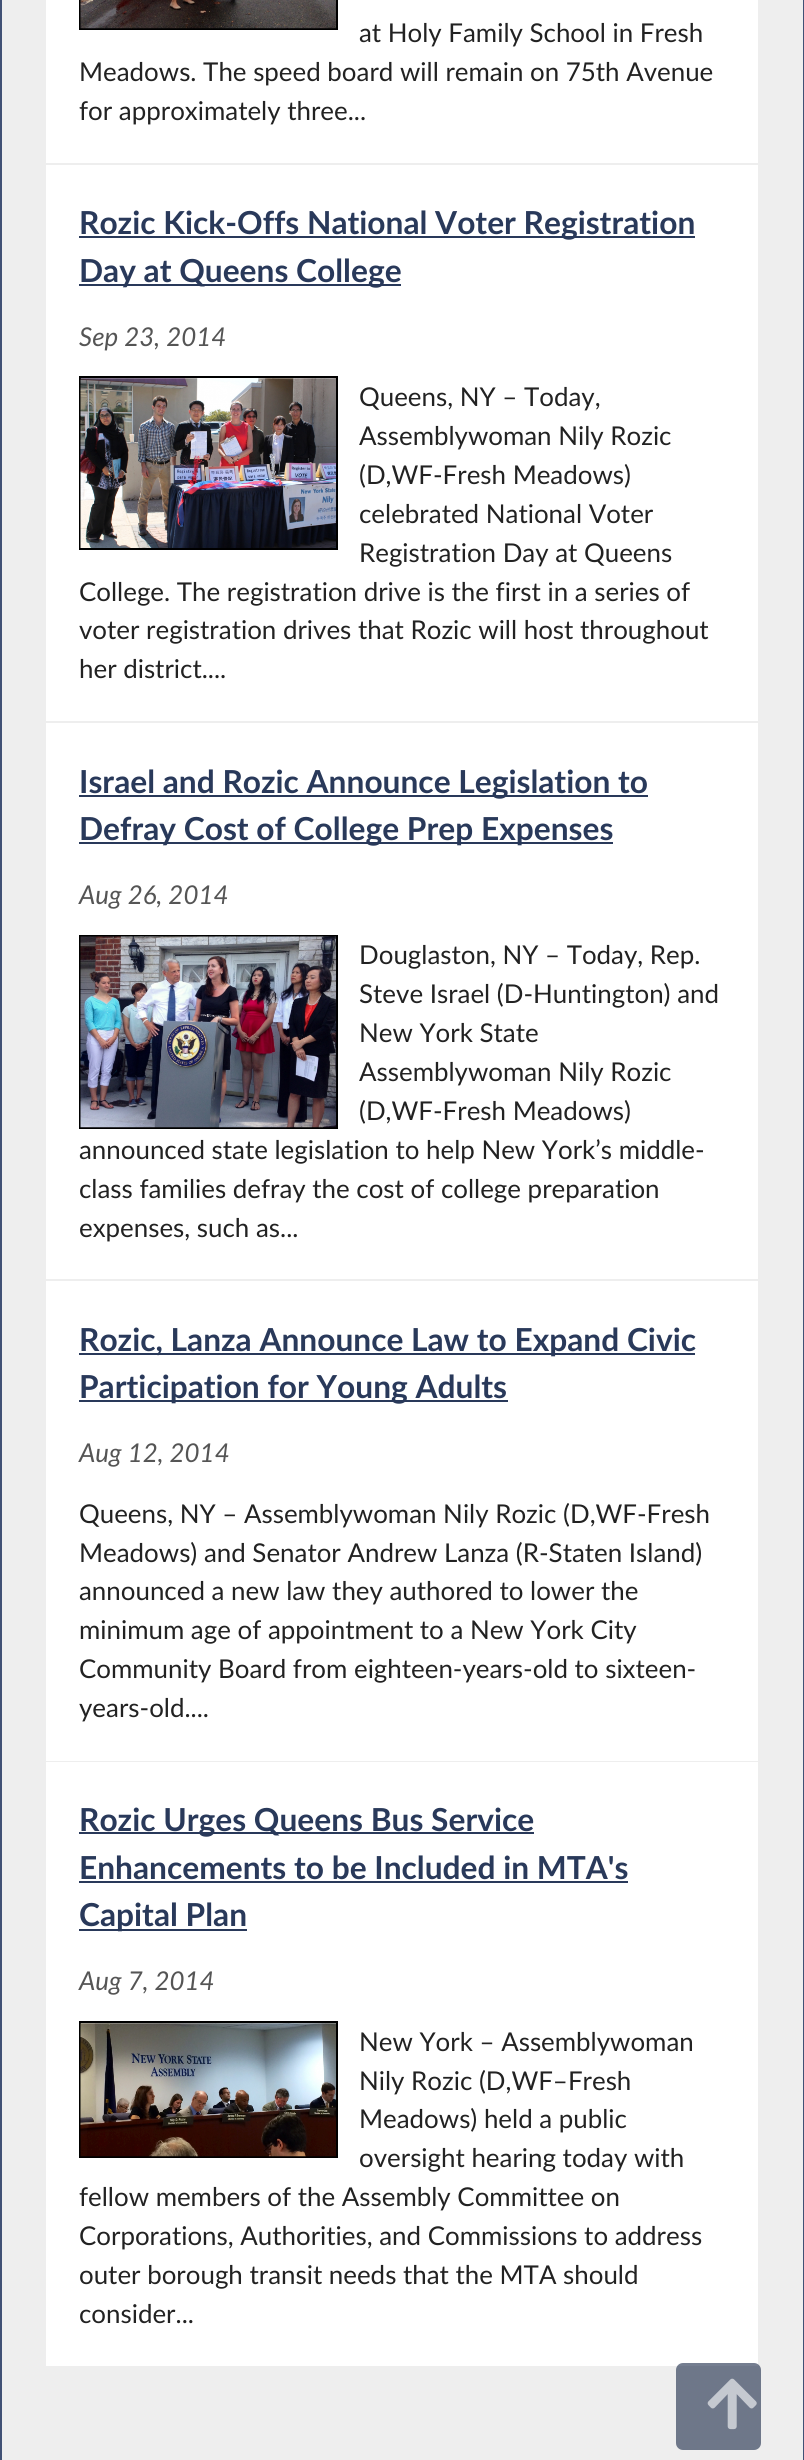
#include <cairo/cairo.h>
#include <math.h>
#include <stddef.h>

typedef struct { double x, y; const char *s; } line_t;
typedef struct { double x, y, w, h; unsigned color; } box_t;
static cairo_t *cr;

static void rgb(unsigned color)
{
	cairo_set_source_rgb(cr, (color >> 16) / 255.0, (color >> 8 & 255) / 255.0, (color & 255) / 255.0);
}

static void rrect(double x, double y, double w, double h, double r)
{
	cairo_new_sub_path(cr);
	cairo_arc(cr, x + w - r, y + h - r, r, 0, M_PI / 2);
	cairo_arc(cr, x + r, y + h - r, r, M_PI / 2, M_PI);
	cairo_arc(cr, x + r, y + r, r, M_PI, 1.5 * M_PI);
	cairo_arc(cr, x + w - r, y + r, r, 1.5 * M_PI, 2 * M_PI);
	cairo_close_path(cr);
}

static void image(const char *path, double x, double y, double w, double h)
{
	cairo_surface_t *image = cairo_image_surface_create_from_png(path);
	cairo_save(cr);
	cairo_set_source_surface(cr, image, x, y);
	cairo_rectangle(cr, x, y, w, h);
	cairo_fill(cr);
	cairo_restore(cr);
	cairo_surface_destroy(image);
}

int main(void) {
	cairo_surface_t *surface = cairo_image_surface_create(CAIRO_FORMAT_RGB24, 804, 2460);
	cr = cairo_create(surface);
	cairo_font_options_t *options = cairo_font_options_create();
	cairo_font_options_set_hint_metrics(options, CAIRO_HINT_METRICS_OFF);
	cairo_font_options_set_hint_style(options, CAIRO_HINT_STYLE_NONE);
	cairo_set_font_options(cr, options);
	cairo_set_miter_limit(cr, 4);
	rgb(0xeeeeee);
	cairo_paint(cr);
	{
		static const box_t items[] = {
			{803, 0, 1, 2460, 0x405175},
			{0, 0, 2, 2460, 0x405175},
			{46, 0, 712, 163, 0xffffff},
		};
		for (size_t i = 0; i < sizeof items / sizeof *items; i++) {
			rgb(items[i].color);
			cairo_rectangle(cr, items[i].x, items[i].y, items[i].w, items[i].h);
			cairo_fill(cr);
		}
	}
	cairo_rectangle(cr, 80, -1, 257, 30);
	rgb(0x000000);
	cairo_stroke(cr);
	image("img/1.png", 80, 0, 256, 29);
	{
		static const box_t items[] = {
			{46, 165, 712, 556, 0xffffff},
			{79, 236, 616, 2, 0x29395a},
			{79, 284, 322, 2, 0x29395a},
		};
		for (size_t i = 0; i < sizeof items / sizeof *items; i++) {
			rgb(items[i].color);
			cairo_rectangle(cr, items[i].x, items[i].y, items[i].w, items[i].h);
			cairo_fill(cr);
		}
	}
	cairo_rectangle(cr, 80, 377, 257, 172);
	rgb(0x000000);
	cairo_stroke(cr);
	image("img/2.png", 80, 378, 256, 170);
	{
		static const box_t items[] = {
			{46, 723, 712, 556, 0xffffff},
			{79, 795, 569, 2, 0x29395a},
			{79, 842, 534, 2, 0x29395a},
		};
		for (size_t i = 0; i < sizeof items / sizeof *items; i++) {
			rgb(items[i].color);
			cairo_rectangle(cr, items[i].x, items[i].y, items[i].w, items[i].h);
			cairo_fill(cr);
		}
	}
	cairo_rectangle(cr, 80, 936, 257, 192);
	rgb(0x000000);
	cairo_stroke(cr);
	image("img/3.png", 80, 936, 256, 192);
	{
		static const box_t items[] = {
			{46, 1281, 712, 480, 0xffffff},
			{79, 1353, 616, 2, 0x29395a},
			{79, 1400, 429, 2, 0x29395a},
			{46, 1762, 712, 604, 0xffffff},
			{79, 1832, 455, 2, 0x29395a},
			{79, 1881, 549, 2, 0x29395a},
			{79, 1929, 168, 2, 0x29395a},
		};
		for (size_t i = 0; i < sizeof items / sizeof *items; i++) {
			rgb(items[i].color);
			cairo_rectangle(cr, items[i].x, items[i].y, items[i].w, items[i].h);
			cairo_fill(cr);
		}
	}
	cairo_rectangle(cr, 80, 2022, 257, 135);
	rgb(0x000000);
	cairo_stroke(cr);
	image("img/4.png", 80, 2023, 256, 134);
	cairo_set_source_rgba(cr, 0.098, 0.157, 0.278, 0.6);
	rrect(676, 2363, 85, 87, 7);
	cairo_fill(cr);
	image("img/5.png", 707, 2378, 50, 52);
	cairo_select_font_face(cr, "Lato", CAIRO_FONT_SLANT_NORMAL, CAIRO_FONT_WEIGHT_NORMAL);
	cairo_set_font_size(cr, 25.9);
	rgb(0x222222);
	{
		static const line_t items[] = {
			{359, 42, "at Holy Family School in Fresh"},
			{79, 81, "Meadows. The speed board will remain on 75th Avenue"},
			{79, 120, "for approximately three..."},
		};
		for (size_t i = 0; i < sizeof items / sizeof *items; i++) {
			cairo_move_to(cr, items[i].x, items[i].y);
			cairo_show_text(cr, items[i].s);
		}
	}
	cairo_select_font_face(cr, "Lato", CAIRO_FONT_SLANT_NORMAL, CAIRO_FONT_WEIGHT_BOLD);
	cairo_set_font_size(cr, 31.7);
	rgb(0x29395a);
	cairo_move_to(cr, 79, 234);
	cairo_show_text(cr, "Rozic Kick-Offs National Voter Registration");
	cairo_move_to(cr, 79, 282);
	cairo_show_text(cr, "Day at Queens College");
	cairo_select_font_face(cr, "Lato", CAIRO_FONT_SLANT_ITALIC, CAIRO_FONT_WEIGHT_NORMAL);
	cairo_set_font_size(cr, 25.9);
	rgb(0x555555);
	cairo_move_to(cr, 79, 346);
	cairo_show_text(cr, "Sep 23, 2014");
	cairo_select_font_face(cr, "Lato", CAIRO_FONT_SLANT_NORMAL, CAIRO_FONT_WEIGHT_NORMAL);
	rgb(0x222222);
	{
		static const line_t items[] = {
			{359, 406, "Queens, NY – Today,"},
			{359, 445, "Assemblywoman Nily Rozic"},
			{359, 484, "(D,WF-Fresh Meadows)"},
			{359, 523, "celebrated National Voter"},
			{359, 562, "Registration Day at Queens"},
			{79, 601, "College. The registration drive is the first in a series of"},
			{79, 639, "voter registration drives that Rozic will host throughout"},
			{79, 678, "her district...."},
		};
		for (size_t i = 0; i < sizeof items / sizeof *items; i++) {
			cairo_move_to(cr, items[i].x, items[i].y);
			cairo_show_text(cr, items[i].s);
		}
	}
	cairo_select_font_face(cr, "Lato", CAIRO_FONT_SLANT_NORMAL, CAIRO_FONT_WEIGHT_BOLD);
	cairo_set_font_size(cr, 31.7);
	rgb(0x29395a);
	cairo_move_to(cr, 79, 793);
	cairo_show_text(cr, "Israel and Rozic Announce Legislation to");
	cairo_move_to(cr, 79, 840);
	cairo_show_text(cr, "Defray Cost of College Prep Expenses");
	cairo_select_font_face(cr, "Lato", CAIRO_FONT_SLANT_ITALIC, CAIRO_FONT_WEIGHT_NORMAL);
	cairo_set_font_size(cr, 25.9);
	rgb(0x555555);
	cairo_move_to(cr, 79, 904);
	cairo_show_text(cr, "Aug 26, 2014");
	cairo_select_font_face(cr, "Lato", CAIRO_FONT_SLANT_NORMAL, CAIRO_FONT_WEIGHT_NORMAL);
	rgb(0x222222);
	{
		static const line_t items[] = {
			{359, 964, "Douglaston, NY – Today, Rep."},
			{359, 1003, "Steve Israel (D-Huntington) and"},
			{359, 1042, "New York State"},
			{359, 1081, "Assemblywoman Nily Rozic"},
			{359, 1120, "(D,WF-Fresh Meadows)"},
			{79, 1159, "announced state legislation to help New York’s middle-"},
			{79, 1198, "class families defray the cost of college preparation"},
			{79, 1237, "expenses, such as..."},
		};
		for (size_t i = 0; i < sizeof items / sizeof *items; i++) {
			cairo_move_to(cr, items[i].x, items[i].y);
			cairo_show_text(cr, items[i].s);
		}
	}
	cairo_select_font_face(cr, "Lato", CAIRO_FONT_SLANT_NORMAL, CAIRO_FONT_WEIGHT_BOLD);
	cairo_set_font_size(cr, 31.7);
	rgb(0x29395a);
	cairo_move_to(cr, 79, 1351);
	cairo_show_text(cr, "Rozic, Lanza Announce Law to Expand Civic");
	cairo_move_to(cr, 79, 1398);
	cairo_show_text(cr, "Participation for Young Adults");
	cairo_select_font_face(cr, "Lato", CAIRO_FONT_SLANT_ITALIC, CAIRO_FONT_WEIGHT_NORMAL);
	cairo_set_font_size(cr, 25.9);
	rgb(0x555555);
	cairo_move_to(cr, 79, 1462);
	cairo_show_text(cr, "Aug 12, 2014");
	cairo_select_font_face(cr, "Lato", CAIRO_FONT_SLANT_NORMAL, CAIRO_FONT_WEIGHT_NORMAL);
	rgb(0x222222);
	{
		static const line_t items[] = {
			{79, 1523, "Queens, NY – Assemblywoman Nily Rozic (D,WF-Fresh"},
			{79, 1562, "Meadows) and Senator Andrew Lanza (R-Staten Island)"},
			{79, 1600, "announced a new law they authored to lower the"},
			{79, 1639, "minimum age of appointment to a New York City"},
			{79, 1678, "Community Board from eighteen-years-old to sixteen-"},
			{79, 1717, "years-old...."},
		};
		for (size_t i = 0; i < sizeof items / sizeof *items; i++) {
			cairo_move_to(cr, items[i].x, items[i].y);
			cairo_show_text(cr, items[i].s);
		}
	}
	cairo_select_font_face(cr, "Lato", CAIRO_FONT_SLANT_NORMAL, CAIRO_FONT_WEIGHT_BOLD);
	cairo_set_font_size(cr, 31.7);
	rgb(0x29395a);
	{
		static const line_t items[] = {
			{79, 1831, "Rozic Urges Queens Bus Service"},
			{79, 1879, "Enhancements to be Included in MTA's"},
			{79, 1926, "Capital Plan"},
		};
		for (size_t i = 0; i < sizeof items / sizeof *items; i++) {
			cairo_move_to(cr, items[i].x, items[i].y);
			cairo_show_text(cr, items[i].s);
		}
	}
	cairo_select_font_face(cr, "Lato", CAIRO_FONT_SLANT_ITALIC, CAIRO_FONT_WEIGHT_NORMAL);
	cairo_set_font_size(cr, 25.9);
	rgb(0x555555);
	cairo_move_to(cr, 79, 1990);
	cairo_show_text(cr, "Aug 7, 2014");
	cairo_select_font_face(cr, "Lato", CAIRO_FONT_SLANT_NORMAL, CAIRO_FONT_WEIGHT_NORMAL);
	rgb(0x222222);
	{
		static const line_t items[] = {
			{359, 2051, "New York – Assemblywoman"},
			{359, 2090, "Nily Rozic (D,WF–Fresh"},
			{359, 2128, "Meadows) held a public"},
			{359, 2167, "oversight hearing today with"},
			{79, 2206, "fellow members of the Assembly Committee on"},
			{79, 2245, "Corporations, Authorities, and Commissions to address"},
			{79, 2284, "outer borough transit needs that the MTA should"},
			{79, 2323, "consider..."},
		};
		for (size_t i = 0; i < sizeof items / sizeof *items; i++) {
			cairo_move_to(cr, items[i].x, items[i].y);
			cairo_show_text(cr, items[i].s);
		}
	}
	cairo_surface_write_to_png(surface, "page.png");
	cairo_font_options_destroy(options);
	cairo_destroy(cr);
	cairo_surface_destroy(surface);
	return 0;
}
